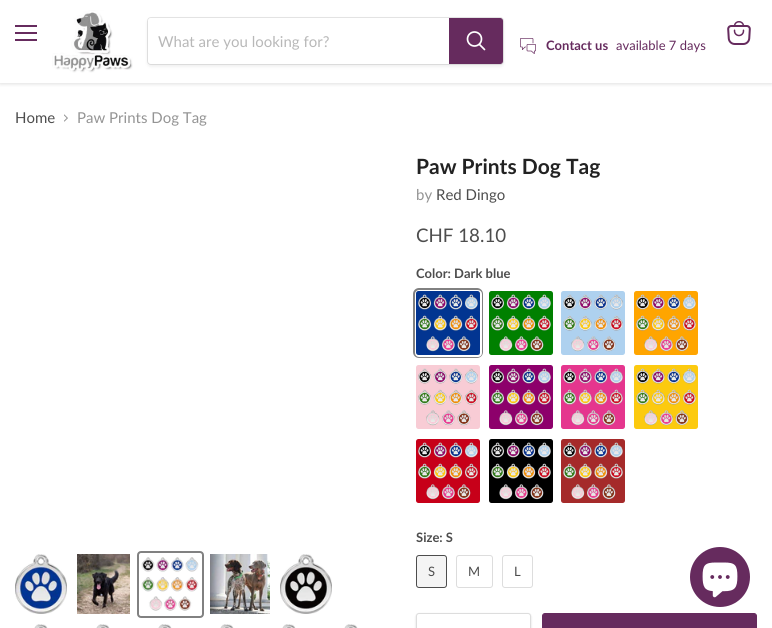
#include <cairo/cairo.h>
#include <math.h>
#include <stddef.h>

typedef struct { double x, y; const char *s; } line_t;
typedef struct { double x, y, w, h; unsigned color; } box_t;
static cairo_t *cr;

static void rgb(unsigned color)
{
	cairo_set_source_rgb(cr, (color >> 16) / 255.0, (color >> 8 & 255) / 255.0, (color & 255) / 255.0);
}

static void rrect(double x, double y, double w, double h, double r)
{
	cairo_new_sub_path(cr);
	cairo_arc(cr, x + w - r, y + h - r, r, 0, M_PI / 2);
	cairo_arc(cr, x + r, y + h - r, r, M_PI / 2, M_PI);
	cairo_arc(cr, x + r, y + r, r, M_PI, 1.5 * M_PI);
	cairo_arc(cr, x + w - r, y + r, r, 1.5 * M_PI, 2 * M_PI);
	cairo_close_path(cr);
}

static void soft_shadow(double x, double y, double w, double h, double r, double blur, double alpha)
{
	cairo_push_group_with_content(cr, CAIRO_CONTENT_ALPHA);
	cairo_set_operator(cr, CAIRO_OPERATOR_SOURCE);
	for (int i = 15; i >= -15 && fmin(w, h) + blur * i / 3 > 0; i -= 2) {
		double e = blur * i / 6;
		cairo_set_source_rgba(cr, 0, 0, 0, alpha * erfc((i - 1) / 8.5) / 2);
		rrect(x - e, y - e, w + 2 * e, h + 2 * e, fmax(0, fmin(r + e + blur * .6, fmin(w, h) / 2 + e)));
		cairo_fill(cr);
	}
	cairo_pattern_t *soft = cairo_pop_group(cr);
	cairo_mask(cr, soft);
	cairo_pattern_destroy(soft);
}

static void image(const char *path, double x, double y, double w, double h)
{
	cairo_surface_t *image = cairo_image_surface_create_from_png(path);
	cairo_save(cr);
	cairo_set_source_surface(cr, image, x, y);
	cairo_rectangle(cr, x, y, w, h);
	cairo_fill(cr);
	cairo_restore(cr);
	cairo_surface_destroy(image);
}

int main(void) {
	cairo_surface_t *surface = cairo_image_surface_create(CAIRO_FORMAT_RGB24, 772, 628);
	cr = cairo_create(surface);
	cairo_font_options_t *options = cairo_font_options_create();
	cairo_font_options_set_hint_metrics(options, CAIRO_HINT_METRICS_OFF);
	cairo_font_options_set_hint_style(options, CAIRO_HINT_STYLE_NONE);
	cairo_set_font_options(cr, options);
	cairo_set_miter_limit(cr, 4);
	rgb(0xffffff);
	cairo_paint(cr);
	cairo_save(cr);
	cairo_rectangle(cr, 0, 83, 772, 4);
	cairo_clip(cr);
	rgb(0x808080);
	soft_shadow(0, 1, 772, 83, 0, 2, 0.25);
	cairo_restore(cr);
	{
		static const box_t items[] = {
			{15, 25, 22, 2, 0x662b5e},
			{15, 32, 22, 2, 0x662b5e},
			{15, 39, 22, 2, 0x662b5e},
		};
		for (size_t i = 0; i < sizeof items / sizeof *items; i++) {
			rgb(items[i].color);
			cairo_rectangle(cr, items[i].x, items[i].y, items[i].w, items[i].h);
			cairo_fill(cr);
		}
	}
	image("img/1.png", 727, 21, 24, 24);
	image("img/2.png", 52, 10, 81, 63);
	rgb(0x808080);
	soft_shadow(147, 19, 357, 48, 4, 1.5, 0.11);
	rrect(147.5, 17.5, 356, 47, 3.5);
	cairo_set_source_rgba(cr, 0.502, 0.502, 0.502, 0.2);
	cairo_set_line_width(cr, 1);
	cairo_stroke(cr);
	rgb(0xffffff);
	cairo_new_path(cr);
	cairo_move_to(cr, 151, 18);
	cairo_line_to(cr, 449, 18);
	cairo_line_to(cr, 449, 64);
	cairo_line_to(cr, 151, 64);
	cairo_curve_to(cr, 149.5, 64, 148, 62.5, 148, 61);
	cairo_line_to(cr, 148, 21);
	cairo_curve_to(cr, 148, 19.5, 149.5, 18, 151, 18);
	cairo_close_path(cr);
	cairo_fill(cr);
	rgb(0x662b5e);
	cairo_new_path(cr);
	cairo_move_to(cr, 449.5, 18.5);
	cairo_line_to(cr, 500, 18.5);
	cairo_curve_to(cr, 501.5, 18.5, 502.5, 19.5, 502.5, 21);
	cairo_line_to(cr, 502.5, 61);
	cairo_curve_to(cr, 502.5, 62.5, 501.5, 63.5, 500, 63.5);
	cairo_line_to(cr, 449.5, 63.5);
	cairo_close_path(cr);
	cairo_fill_preserve(cr);
	cairo_stroke(cr);
	cairo_new_path(cr);
	cairo_move_to(cr, 484.5, 49.5);
	cairo_line_to(cr, 479.5, 44.5);
	rgb(0xffffff);
	cairo_set_line_width(cr, 1.7);
	cairo_set_line_cap(cr, CAIRO_LINE_CAP_ROUND);
	cairo_stroke(cr);
	cairo_arc(cr, 474.5, 39, 7, 0, 2 * M_PI);
	cairo_set_line_cap(cr, CAIRO_LINE_CAP_BUTT);
	cairo_stroke(cr);
	image("img/3.png", 520, 38, 16, 16);
	image("img/4.png", 64, 114, 4, 8);
	rrect(414.5, 289.5, 67, 67, 4.5);
	rgb(0x818181);
	cairo_set_line_width(cr, 3);
	cairo_stroke(cr);
	rrect(416, 291, 65, 65, 3);
	rgb(0xffffff);
	cairo_set_line_width(cr, 2);
	cairo_stroke(cr);
	rgb(0x023591);
	rrect(416, 291, 64, 64, 2.5);
	cairo_fill(cr);
	image("img/5.png", 418, 294, 60, 58);
	rgb(0x008000);
	rrect(489, 291, 64, 64, 2.5);
	cairo_fill(cr);
	image("img/6.png", 491, 294, 60, 58);
	rgb(0xaed1ef);
	rrect(561, 291, 64, 64, 2.5);
	cairo_fill(cr);
	image("img/7.png", 563, 294, 60, 58);
	rgb(0xffa500);
	rrect(634, 291, 64, 64, 2.5);
	cairo_fill(cr);
	image("img/8.png", 636, 294, 60, 58);
	rgb(0xf8ccd5);
	rrect(416, 365, 64, 64, 2.5);
	cairo_fill(cr);
	image("img/9.png", 418, 368, 60, 58);
	rgb(0x8d006b);
	rrect(489, 365, 64, 64, 2.5);
	cairo_fill(cr);
	image("img/10.png", 491, 368, 60, 58);
	rgb(0xe5368e);
	rrect(561, 365, 64, 64, 2.5);
	cairo_fill(cr);
	image("img/11.png", 563, 368, 60, 58);
	rgb(0xfcca0f);
	rrect(634, 365, 64, 64, 2.5);
	cairo_fill(cr);
	image("img/12.png", 636, 368, 60, 58);
	rgb(0xc70019);
	rrect(416, 439, 64, 64, 2.5);
	cairo_fill(cr);
	image("img/13.png", 418, 442, 60, 58);
	rgb(0x000000);
	rrect(489, 439, 64, 64, 2.5);
	cairo_fill(cr);
	image("img/14.png", 491, 442, 60, 58);
	rgb(0xa52a2a);
	rrect(561, 439, 64, 64, 2.5);
	cairo_fill(cr);
	image("img/15.png", 563, 442, 60, 58);
	rgb(0xf4f4f4);
	rrect(416.5, 555.5, 30, 32, 2.5);
	cairo_fill_preserve(cr);
	rgb(0x4d4d4d);
	cairo_set_line_width(cr, 1);
	cairo_stroke(cr);
	rrect(456.5, 555.5, 36, 32, 2.5);
	rgb(0xdddddd);
	cairo_stroke(cr);
	rrect(502.5, 555.5, 30, 32, 2.5);
	cairo_stroke(cr);
	rgb(0x000000);
	soft_shadow(416, 614, 115, 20, 3, 1, 0.15);
	rgb(0xffffff);
	rrect(416.5, 613.5, 114, 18, 2.5);
	cairo_fill_preserve(cr);
	rgb(0xdddddd);
	cairo_stroke(cr);
	rgb(0x662b5e);
	rrect(542.5, 613.5, 214, 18, 2.5);
	cairo_fill_preserve(cr);
	cairo_stroke(cr);
	image("img/16.png", 15, 554, 52, 60);
	image("img/17.png", 77, 554, 53, 60);
	rrect(138, 552, 65, 65, 3);
	rgb(0x818181);
	cairo_set_line_width(cr, 2);
	cairo_stroke(cr);
	image("img/18.png", 141, 557, 58, 54);
	image("img/19.png", 210, 554, 60, 60);
	image("img/20.png", 280, 554, 52, 60);
	image("img/21.png", 34, 624, 14, 4);
	image("img/21.png", 96, 624, 14, 4);
	image("img/22.png", 158, 624, 14, 4);
	image("img/23.png", 220, 624, 14, 4);
	image("img/24.png", 282, 624, 14, 4);
	image("img/23.png", 344, 624, 14, 4);
	rgb(0x662b5e);
	cairo_arc(cr, 720, 577, 30, 0, 2 * M_PI);
	cairo_fill(cr);
	image("img/25.png", 702, 562, 36, 36);
	cairo_select_font_face(cr, "Lato", CAIRO_FONT_SLANT_NORMAL, CAIRO_FONT_WEIGHT_NORMAL);
	cairo_set_font_size(cr, 15);
	rgb(0xb8b8b8);
	cairo_move_to(cr, 158, 47);
	cairo_show_text(cr, "What are you looking for?");
	cairo_select_font_face(cr, "Lato", CAIRO_FONT_SLANT_NORMAL, CAIRO_FONT_WEIGHT_BOLD);
	cairo_set_font_size(cr, 13);
	rgb(0x662b5e);
	cairo_move_to(cr, 546, 50);
	cairo_show_text(cr, "Contact us");
	cairo_select_font_face(cr, "Lato", CAIRO_FONT_SLANT_NORMAL, CAIRO_FONT_WEIGHT_NORMAL);
	cairo_move_to(cr, 616, 50);
	cairo_show_text(cr, "available 7 days");
	cairo_set_font_size(cr, 15);
	rgb(0x4d4d4d);
	cairo_move_to(cr, 15, 123);
	cairo_show_text(cr, "Home");
	rgb(0x949494);
	cairo_move_to(cr, 77, 123);
	cairo_show_text(cr, "Paw Prints Dog Tag");
	cairo_select_font_face(cr, "Lato", CAIRO_FONT_SLANT_NORMAL, CAIRO_FONT_WEIGHT_BOLD);
	cairo_set_font_size(cr, 21);
	rgb(0x222222);
	cairo_move_to(cr, 416, 174);
	cairo_show_text(cr, "Paw Prints Dog Tag");
	cairo_select_font_face(cr, "Lato", CAIRO_FONT_SLANT_NORMAL, CAIRO_FONT_WEIGHT_NORMAL);
	cairo_set_font_size(cr, 15);
	rgb(0x949494);
	cairo_move_to(cr, 416, 200);
	cairo_show_text(cr, "by");
	rgb(0x4d4d4d);
	cairo_move_to(cr, 436, 200);
	cairo_show_text(cr, "Red Dingo");
	cairo_set_font_size(cr, 18.75);
	cairo_move_to(cr, 416, 242);
	cairo_show_text(cr, "CHF 18.10");
	cairo_select_font_face(cr, "Lato", CAIRO_FONT_SLANT_NORMAL, CAIRO_FONT_WEIGHT_BOLD);
	cairo_set_font_size(cr, 13);
	cairo_move_to(cr, 416, 278);
	cairo_show_text(cr, "Color: Dark blue");
	cairo_move_to(cr, 416, 542);
	cairo_show_text(cr, "Size: S");
	cairo_select_font_face(cr, "Lato", CAIRO_FONT_SLANT_NORMAL, CAIRO_FONT_WEIGHT_NORMAL);
	{
		static const line_t items[] = {
			{428, 576, "S"},
			{468, 576, "M"},
			{514, 576, "L"},
		};
		for (size_t i = 0; i < sizeof items / sizeof *items; i++) {
			cairo_move_to(cr, items[i].x, items[i].y);
			cairo_show_text(cr, items[i].s);
		}
	}
	cairo_surface_write_to_png(surface, "page.png");
	cairo_font_options_destroy(options);
	cairo_destroy(cr);
	cairo_surface_destroy(surface);
	return 0;
}
